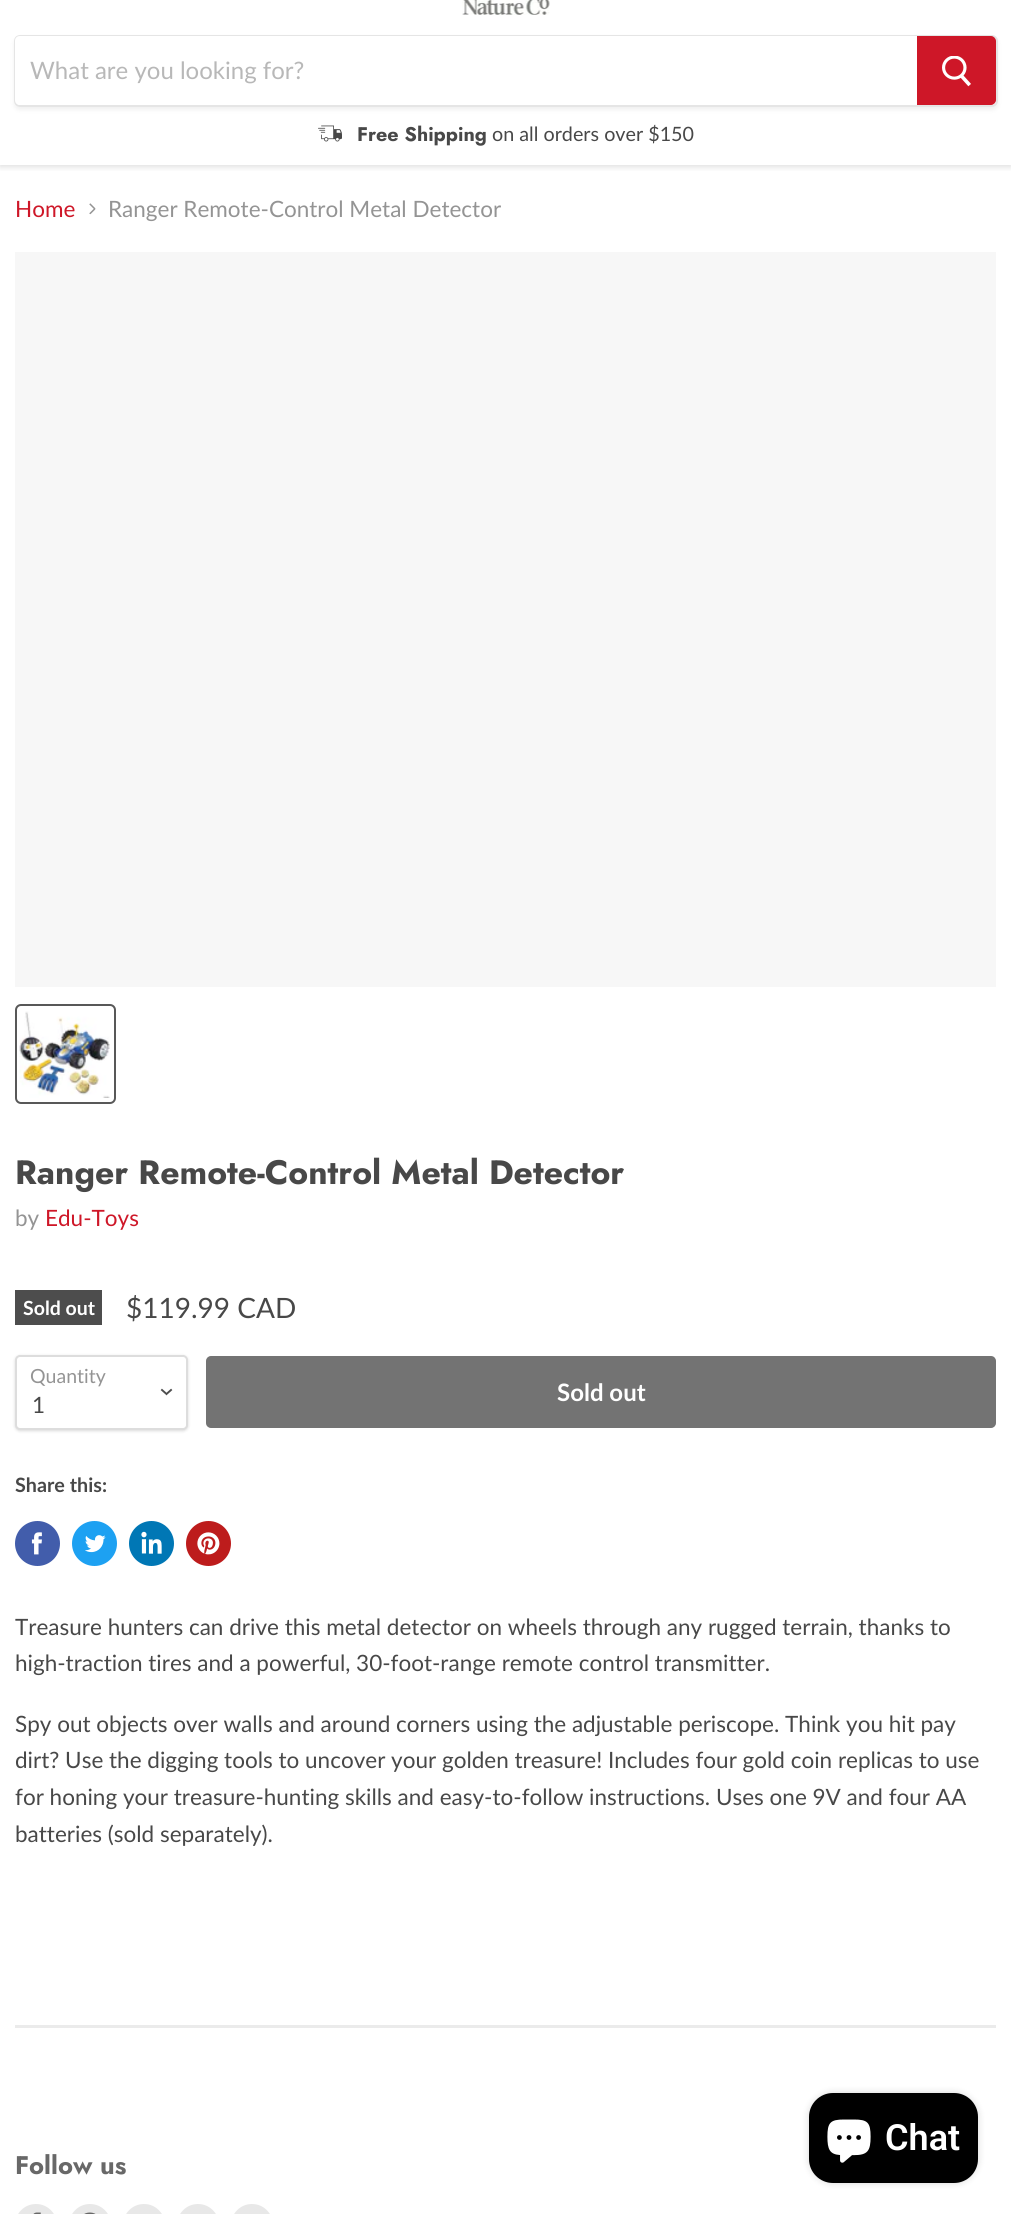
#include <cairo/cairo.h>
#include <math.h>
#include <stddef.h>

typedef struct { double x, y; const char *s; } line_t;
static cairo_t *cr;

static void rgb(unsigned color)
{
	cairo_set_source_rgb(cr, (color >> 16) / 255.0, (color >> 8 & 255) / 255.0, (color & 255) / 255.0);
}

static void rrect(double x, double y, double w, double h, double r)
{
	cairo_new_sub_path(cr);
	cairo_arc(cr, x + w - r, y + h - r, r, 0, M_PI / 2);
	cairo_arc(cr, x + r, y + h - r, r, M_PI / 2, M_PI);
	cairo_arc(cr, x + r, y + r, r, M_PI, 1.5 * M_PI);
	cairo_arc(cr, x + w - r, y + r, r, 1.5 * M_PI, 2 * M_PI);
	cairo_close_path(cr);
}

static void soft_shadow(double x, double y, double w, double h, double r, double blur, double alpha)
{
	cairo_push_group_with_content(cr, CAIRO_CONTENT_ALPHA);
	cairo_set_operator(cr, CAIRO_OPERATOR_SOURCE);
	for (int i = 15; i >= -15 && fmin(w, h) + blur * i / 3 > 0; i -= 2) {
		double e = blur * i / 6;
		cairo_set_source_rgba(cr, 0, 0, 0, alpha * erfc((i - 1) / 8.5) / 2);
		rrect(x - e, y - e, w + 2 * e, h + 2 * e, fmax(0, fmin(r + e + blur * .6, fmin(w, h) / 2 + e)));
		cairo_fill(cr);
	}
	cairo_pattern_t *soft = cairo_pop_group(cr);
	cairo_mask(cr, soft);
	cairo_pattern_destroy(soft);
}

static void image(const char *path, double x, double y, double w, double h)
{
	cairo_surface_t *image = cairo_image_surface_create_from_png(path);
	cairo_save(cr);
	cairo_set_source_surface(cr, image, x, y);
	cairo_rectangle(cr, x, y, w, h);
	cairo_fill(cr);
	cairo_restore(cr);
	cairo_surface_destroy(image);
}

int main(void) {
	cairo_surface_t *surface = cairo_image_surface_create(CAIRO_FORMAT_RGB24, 1011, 2214);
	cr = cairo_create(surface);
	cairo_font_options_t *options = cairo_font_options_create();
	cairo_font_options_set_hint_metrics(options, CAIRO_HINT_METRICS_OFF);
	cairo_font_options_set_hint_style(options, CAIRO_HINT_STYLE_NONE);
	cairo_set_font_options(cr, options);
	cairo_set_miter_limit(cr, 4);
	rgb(0xffffff);
	cairo_paint(cr);
	cairo_save(cr);
	cairo_rectangle(cr, 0, 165, 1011, 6);
	cairo_clip(cr);
	rgb(0x7f7f7f);
	soft_shadow(0, -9, 1011, 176, 0, 3, 0.25);
	cairo_restore(cr);
	image("img/1.png", 462, 0, 88, 15);
	cairo_save(cr);
	cairo_set_fill_rule(cr, CAIRO_FILL_RULE_EVEN_ODD);
	cairo_new_path(cr);
	cairo_move_to(cr, 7, 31);
	cairo_line_to(cr, 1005, 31);
	cairo_line_to(cr, 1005, 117);
	cairo_line_to(cr, 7, 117);
	cairo_close_path(cr);
	cairo_move_to(cr, 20, 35);
	cairo_line_to(cr, 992, 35);
	cairo_curve_to(cr, 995.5, 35, 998, 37.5, 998, 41);
	cairo_line_to(cr, 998, 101);
	cairo_curve_to(cr, 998, 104.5, 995.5, 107, 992, 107);
	cairo_line_to(cr, 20, 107);
	cairo_curve_to(cr, 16.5, 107, 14, 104.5, 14, 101);
	cairo_line_to(cr, 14, 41);
	cairo_curve_to(cr, 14, 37.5, 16.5, 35, 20, 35);
	cairo_close_path(cr);
	cairo_clip(cr);
	rgb(0x7f7f7f);
	soft_shadow(14, 38, 984, 72, 6, 2, 0.11);
	cairo_restore(cr);
	rrect(15, 36, 982, 70, 5);
	cairo_set_source_rgba(cr, 0.498, 0.498, 0.498, 0.2);
	cairo_stroke(cr);
	rgb(0xffffff);
	cairo_new_path(cr);
	cairo_move_to(cr, 20, 36);
	cairo_line_to(cr, 917, 36);
	cairo_line_to(cr, 917, 105);
	cairo_line_to(cr, 20, 105);
	cairo_curve_to(cr, 17, 105, 15, 103, 15, 100);
	cairo_line_to(cr, 15, 41);
	cairo_curve_to(cr, 15, 38, 17, 36, 20, 36);
	cairo_close_path(cr);
	cairo_fill(cr);
	rgb(0xce1728);
	cairo_new_path(cr);
	cairo_move_to(cr, 918, 37);
	cairo_line_to(cr, 991, 37);
	cairo_curve_to(cr, 993, 37, 995, 39, 995, 41);
	cairo_line_to(cr, 995, 100);
	cairo_curve_to(cr, 995, 102, 993, 104, 991, 104);
	cairo_line_to(cr, 918, 104);
	cairo_close_path(cr);
	cairo_fill_preserve(cr);
	cairo_stroke(cr);
	image("img/2.png", 942, 56, 29, 31);
	image("img/3.png", 318, 125, 24, 17);
	image("img/4.png", 89, 203, 7, 12);
	rgb(0xf7f7f7);
	cairo_rectangle(cr, 15, 252, 981, 735);
	cairo_fill(cr);
	rrect(16, 1005, 99, 98, 5);
	rgb(0x585858);
	cairo_stroke(cr);
	image("img/5.png", 19, 1011, 91, 87);
	rgb(0x4d4d4d);
	cairo_rectangle(cr, 15, 1290, 87, 35);
	cairo_fill(cr);
	rgb(0x000000);
	soft_shadow(15, 1356, 173, 75, 5, 1.5, 0.15);
	rgb(0xffffff);
	rrect(16, 1356, 171, 73, 4);
	cairo_fill_preserve(cr);
	rgb(0xdddddd);
	cairo_stroke(cr);
	cairo_new_path(cr);
	cairo_move_to(cr, 166.5, 1394);
	cairo_line_to(cr, 171, 1390);
	cairo_move_to(cr, 166.5, 1394);
	cairo_line_to(cr, 162, 1390);
	rgb(0x4d4d4d);
	cairo_set_line_width(cr, 1.9);
	cairo_set_line_cap(cr, CAIRO_LINE_CAP_SQUARE);
	cairo_stroke(cr);
	rgb(0x737373);
	rrect(207, 1357, 788, 70, 4);
	cairo_fill_preserve(cr);
	cairo_set_line_width(cr, 2);
	cairo_set_line_cap(cr, CAIRO_LINE_CAP_BUTT);
	cairo_stroke(cr);
	rgb(0x425dab);
	cairo_arc(cr, 37.5, 1543.5, 22.5, 0, 2 * M_PI);
	cairo_fill(cr);
	image("img/6.png", 31, 1532, 11, 23);
	rgb(0x1da1f2);
	cairo_arc(cr, 94.5, 1543.5, 22.5, 0, 2 * M_PI);
	cairo_fill(cr);
	image("img/7.png", 85, 1535, 21, 18);
	rgb(0x0077b5);
	cairo_arc(cr, 151.5, 1543.5, 22.5, 0, 2 * M_PI);
	cairo_fill(cr);
	image("img/8.png", 141, 1531, 21, 23);
	rgb(0xbd1c1c);
	cairo_arc(cr, 208.5, 1543.5, 22.5, 0, 2 * M_PI);
	cairo_fill(cr);
	image("img/9.png", 197, 1532, 23, 23);
	rgb(0xebebeb);
	cairo_rectangle(cr, 15, 2025, 981, 3);
	cairo_fill(cr);
	rgb(0x000000);
	soft_shadow(809, 2093, 169, 90, 24, 4, 0.15);
	rgb(0x000000);
	rrect(809, 2093, 169, 90, 24);
	cairo_fill(cr);
	image("img/10.png", 827, 2119, 44, 44);
	rgb(0xe8e8e8);
	rrect(15, 2204, 42, 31, 21);
	cairo_fill(cr);
	image("img/11.png", 33, 2212, 8, 2);
	rrect(69, 2204, 42, 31, 21);
	cairo_fill(cr);
	image("img/12.png", 84, 2212, 12, 2);
	rrect(123, 2204, 42, 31, 21);
	cairo_fill(cr);
	rrect(177, 2204, 42, 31, 21);
	cairo_fill(cr);
	rrect(231, 2204, 42, 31, 21);
	cairo_fill(cr);
	cairo_select_font_face(cr, "Lato", CAIRO_FONT_SLANT_NORMAL, CAIRO_FONT_WEIGHT_NORMAL);
	cairo_set_font_size(cr, 24);
	rgb(0xb8b8b8);
	cairo_move_to(cr, 30, 79);
	cairo_show_text(cr, "What are you looking for?");
	cairo_select_font_face(cr, "Jost", CAIRO_FONT_SLANT_NORMAL, CAIRO_FONT_WEIGHT_BOLD);
	cairo_set_font_size(cr, 19.75);
	rgb(0x484848);
	cairo_move_to(cr, 357, 141);
	cairo_show_text(cr, "Free Shipping");
	cairo_select_font_face(cr, "Lato", CAIRO_FONT_SLANT_NORMAL, CAIRO_FONT_WEIGHT_NORMAL);
	cairo_move_to(cr, 492, 141);
	cairo_show_text(cr, "on all orders over $150");
	cairo_set_font_size(cr, 22.5);
	rgb(0xce1728);
	cairo_move_to(cr, 15, 217);
	cairo_show_text(cr, "Home");
	rgb(0x949494);
	cairo_move_to(cr, 108, 217);
	cairo_show_text(cr, "Ranger Remote-Control Metal Detector");
	cairo_select_font_face(cr, "Jost", CAIRO_FONT_SLANT_NORMAL, CAIRO_FONT_WEIGHT_BOLD);
	cairo_set_font_size(cr, 33.75);
	rgb(0x484848);
	cairo_move_to(cr, 15, 1184);
	cairo_show_text(cr, "Ranger Remote-Control Metal Detector");
	cairo_select_font_face(cr, "Lato", CAIRO_FONT_SLANT_NORMAL, CAIRO_FONT_WEIGHT_NORMAL);
	cairo_set_font_size(cr, 22.5);
	rgb(0x949494);
	cairo_move_to(cr, 15, 1226);
	cairo_show_text(cr, "by");
	rgb(0xce1728);
	cairo_move_to(cr, 45, 1226);
	cairo_show_text(cr, "Edu-Toys");
	cairo_select_font_face(cr, "Lato", CAIRO_FONT_SLANT_NORMAL, CAIRO_FONT_WEIGHT_BOLD);
	cairo_set_font_size(cr, 19.5);
	rgb(0xffffff);
	cairo_move_to(cr, 23, 1315);
	cairo_show_text(cr, "Sold out");
	cairo_select_font_face(cr, "Lato", CAIRO_FONT_SLANT_NORMAL, CAIRO_FONT_WEIGHT_NORMAL);
	cairo_set_font_size(cr, 28);
	rgb(0x484848);
	cairo_move_to(cr, 126, 1318);
	cairo_show_text(cr, "$119.99 CAD");
	cairo_set_font_size(cr, 19.5);
	rgb(0x949494);
	cairo_move_to(cr, 30, 1383);
	cairo_show_text(cr, "Quantity");
	cairo_set_font_size(cr, 22.5);
	rgb(0x484848);
	cairo_move_to(cr, 32, 1413);
	cairo_show_text(cr, "1");
	cairo_select_font_face(cr, "Lato", CAIRO_FONT_SLANT_NORMAL, CAIRO_FONT_WEIGHT_BOLD);
	cairo_set_font_size(cr, 24);
	rgb(0xffffff);
	cairo_move_to(cr, 557, 1401);
	cairo_show_text(cr, "Sold out");
	cairo_set_font_size(cr, 19.75);
	rgb(0x484848);
	cairo_move_to(cr, 15, 1492);
	cairo_show_text(cr, "Share this:");
	cairo_select_font_face(cr, "Lato", CAIRO_FONT_SLANT_NORMAL, CAIRO_FONT_WEIGHT_NORMAL);
	cairo_set_font_size(cr, 22.5);
	{
		static const line_t items[] = {
			{15, 1635, "Treasure hunters can drive this metal detector on wheels through any rugged terrain, thanks to"},
			{15, 1671, "high-traction tires and a powerful, 30-foot-range remote control transmitter."},
			{15, 1732, "Spy out objects over walls and around corners using the adjustable periscope. Think you hit pay"},
			{15, 1768, "dirt? Use the digging tools to uncover your golden treasure! Includes four gold coin replicas to use"},
			{15, 1805, "for honing your treasure-hunting skills and easy-to-follow instructions. Uses one 9V and four AA"},
			{15, 1842, "batteries (sold separately)."},
		};
		for (size_t i = 0; i < sizeof items / sizeof *items; i++) {
			cairo_move_to(cr, items[i].x, items[i].y);
			cairo_show_text(cr, items[i].s);
		}
	}
	cairo_select_font_face(cr, "Roboto SemiBold", CAIRO_FONT_SLANT_NORMAL, CAIRO_FONT_WEIGHT_NORMAL);
	cairo_set_font_size(cr, 36);
	rgb(0xffffff);
	cairo_move_to(cr, 885, 2150);
	cairo_show_text(cr, "Chat");
	cairo_select_font_face(cr, "Jost", CAIRO_FONT_SLANT_NORMAL, CAIRO_FONT_WEIGHT_BOLD);
	cairo_set_font_size(cr, 25.5);
	rgb(0x686868);
	cairo_move_to(cr, 15, 2174);
	cairo_show_text(cr, "Follow us");
	cairo_surface_write_to_png(surface, "page.png");
	cairo_font_options_destroy(options);
	cairo_destroy(cr);
	cairo_surface_destroy(surface);
	return 0;
}
